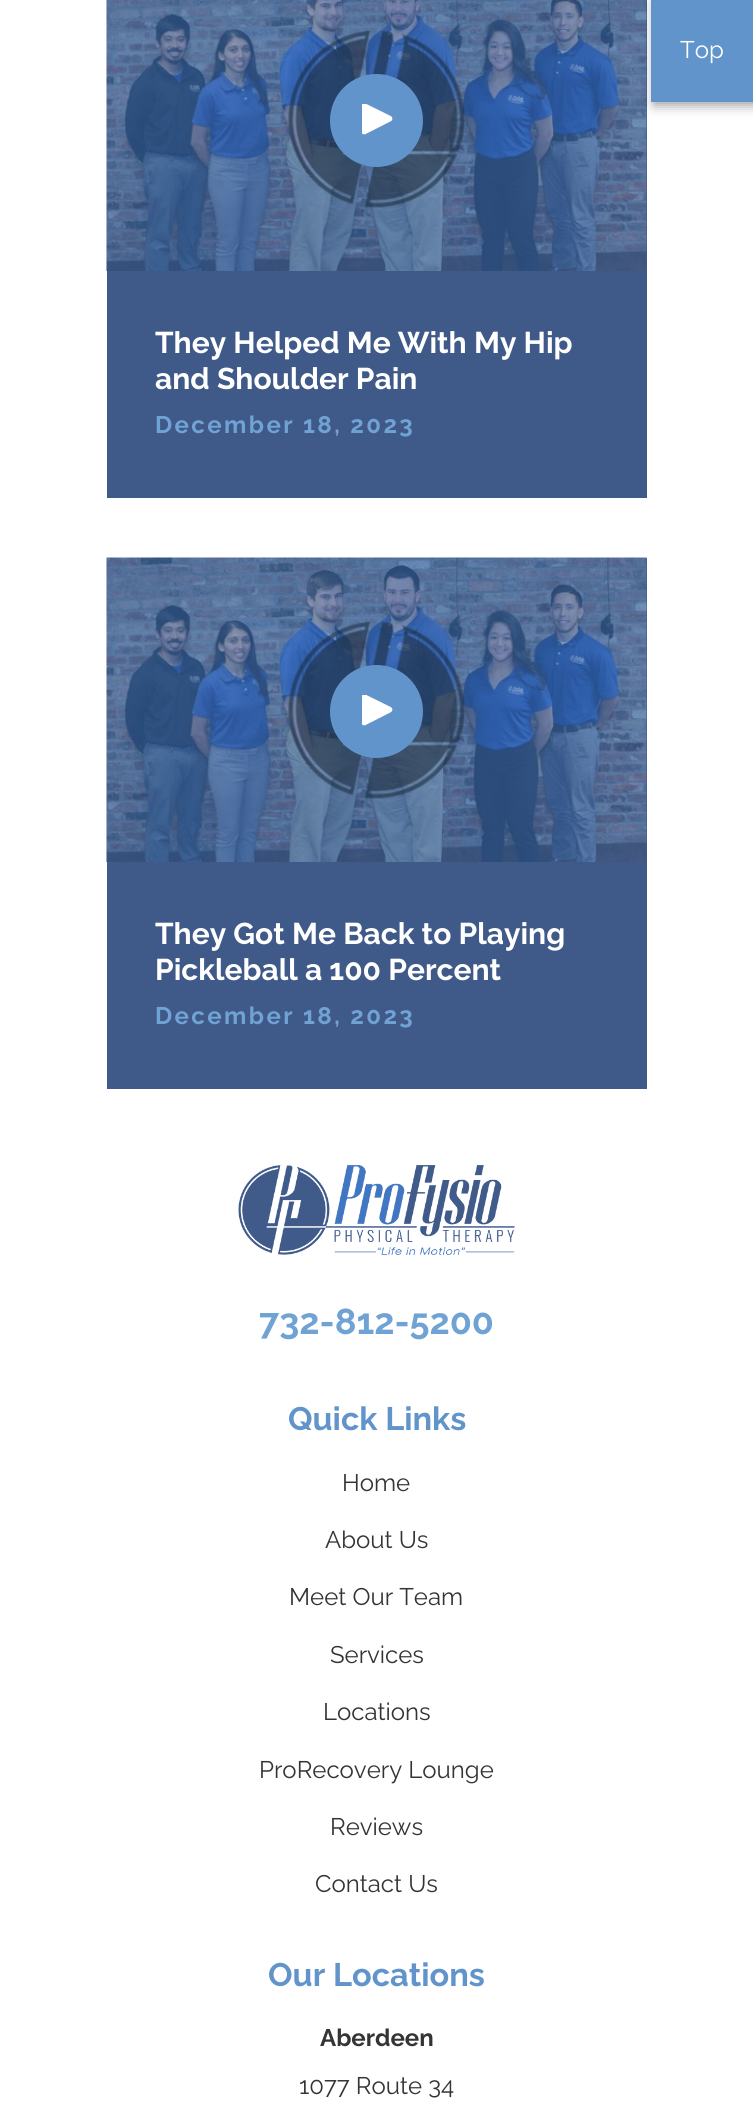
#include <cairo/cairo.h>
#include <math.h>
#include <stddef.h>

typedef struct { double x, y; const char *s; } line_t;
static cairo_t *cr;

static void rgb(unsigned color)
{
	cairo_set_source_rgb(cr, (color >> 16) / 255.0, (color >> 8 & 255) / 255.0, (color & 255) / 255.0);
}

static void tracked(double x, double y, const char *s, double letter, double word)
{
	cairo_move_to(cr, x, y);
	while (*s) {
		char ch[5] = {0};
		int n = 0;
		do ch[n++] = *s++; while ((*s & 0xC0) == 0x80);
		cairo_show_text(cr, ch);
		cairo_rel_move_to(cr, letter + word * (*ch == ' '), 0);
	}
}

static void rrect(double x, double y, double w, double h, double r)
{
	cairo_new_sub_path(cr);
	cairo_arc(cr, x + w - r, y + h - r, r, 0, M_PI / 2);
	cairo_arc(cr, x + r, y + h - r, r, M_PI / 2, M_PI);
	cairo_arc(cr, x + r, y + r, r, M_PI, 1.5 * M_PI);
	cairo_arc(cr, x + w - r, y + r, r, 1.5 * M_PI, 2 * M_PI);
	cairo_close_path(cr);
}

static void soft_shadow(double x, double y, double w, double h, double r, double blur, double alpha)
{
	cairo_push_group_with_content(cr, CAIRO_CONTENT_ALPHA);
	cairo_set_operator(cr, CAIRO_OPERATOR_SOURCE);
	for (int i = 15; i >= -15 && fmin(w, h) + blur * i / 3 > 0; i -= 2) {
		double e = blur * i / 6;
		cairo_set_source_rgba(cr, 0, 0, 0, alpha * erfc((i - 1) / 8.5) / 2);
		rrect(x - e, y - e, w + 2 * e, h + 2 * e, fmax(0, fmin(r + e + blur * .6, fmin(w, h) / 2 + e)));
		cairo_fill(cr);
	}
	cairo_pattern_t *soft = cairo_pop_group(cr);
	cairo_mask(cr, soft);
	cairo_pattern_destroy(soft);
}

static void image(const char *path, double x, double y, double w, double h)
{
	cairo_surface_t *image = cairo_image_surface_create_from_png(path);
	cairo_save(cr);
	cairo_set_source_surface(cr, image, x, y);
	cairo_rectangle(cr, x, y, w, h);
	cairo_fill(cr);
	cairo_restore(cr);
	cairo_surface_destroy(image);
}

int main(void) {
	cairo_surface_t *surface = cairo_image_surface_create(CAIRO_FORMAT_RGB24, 753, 2106);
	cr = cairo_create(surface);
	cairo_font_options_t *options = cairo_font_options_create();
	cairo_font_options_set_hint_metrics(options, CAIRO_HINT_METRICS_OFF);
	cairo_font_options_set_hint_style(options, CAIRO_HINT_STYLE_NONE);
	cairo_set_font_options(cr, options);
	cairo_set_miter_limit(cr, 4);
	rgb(0xffffff);
	cairo_paint(cr);
	rgb(0x3f5a89);
	cairo_rectangle(cr, 107, 0, 540, 498);
	cairo_fill(cr);
	image("img/1.png", 106, 0, 541, 271);
	rgb(0x000000);
	soft_shadow(654, 3, 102, 102, 0, 6, 0.4);
	rgb(0x6294cc);
	cairo_rectangle(cr, 651, 0, 102, 102);
	cairo_fill(cr);
	cairo_arc(cr, 376.5, 120.5, 46.5, 0, 2 * M_PI);
	cairo_fill(cr);
	image("img/2.png", 362, 104, 31, 31);
	rgb(0x3f5a89);
	cairo_rectangle(cr, 107, 558, 540, 531);
	cairo_fill(cr);
	image("img/3.png", 106, 557, 541, 305);
	rgb(0x6294cc);
	cairo_arc(cr, 376.5, 711.5, 46.5, 0, 2 * M_PI);
	cairo_fill(cr);
	image("img/2.png", 362, 695, 31, 31);
	image("img/4.png", 238, 1165, 277, 90);
	cairo_select_font_face(cr, "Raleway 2 Thin", CAIRO_FONT_SLANT_NORMAL, CAIRO_FONT_WEIGHT_NORMAL);
	cairo_set_font_size(cr, 24);
	rgb(0xffffff);
	cairo_move_to(cr, 680, 58);
	cairo_show_text(cr, "Top");
	cairo_select_font_face(cr, "Raleway Thin", CAIRO_FONT_SLANT_NORMAL, CAIRO_FONT_WEIGHT_NORMAL);
	cairo_set_font_size(cr, 30);
	cairo_move_to(cr, 155, 353);
	cairo_show_text(cr, "They Helped Me With My Hip");
	cairo_move_to(cr, 155, 389);
	cairo_show_text(cr, "and Shoulder Pain");
	cairo_set_font_size(cr, 24);
	rgb(0x70a3d3);
	tracked(155, 433, "December 18, 2023", 2.4, 0);
	cairo_set_font_size(cr, 30);
	rgb(0xffffff);
	cairo_move_to(cr, 155, 944);
	cairo_show_text(cr, "They Got Me Back to Playing");
	cairo_move_to(cr, 155, 980);
	cairo_show_text(cr, "Pickleball a 100 Percent");
	cairo_set_font_size(cr, 24);
	rgb(0x70a3d3);
	tracked(155, 1024, "December 18, 2023", 2.4, 0);
	cairo_set_font_size(cr, 36);
	cairo_move_to(cr, 259, 1334);
	cairo_show_text(cr, "732-812-5200");
	cairo_set_font_size(cr, 32.5);
	rgb(0x6294cc);
	cairo_move_to(cr, 288, 1430);
	cairo_show_text(cr, "Quick Links");
	cairo_select_font_face(cr, "Raleway 2 Thin", CAIRO_FONT_SLANT_NORMAL, CAIRO_FONT_WEIGHT_NORMAL);
	cairo_set_font_size(cr, 24);
	rgb(0x343434);
	{
		static const line_t items[] = {
			{342, 1491, "Home"},
			{325, 1548, "About Us"},
			{289, 1605, "Meet Our Team"},
			{330, 1663, "Services"},
			{323, 1720, "Locations"},
			{259, 1778, "ProRecovery Lounge"},
			{330, 1835, "Reviews"},
			{315, 1892, "Contact Us"},
		};
		for (size_t i = 0; i < sizeof items / sizeof *items; i++) {
			cairo_move_to(cr, items[i].x, items[i].y);
			cairo_show_text(cr, items[i].s);
		}
	}
	cairo_select_font_face(cr, "Raleway Thin", CAIRO_FONT_SLANT_NORMAL, CAIRO_FONT_WEIGHT_NORMAL);
	cairo_set_font_size(cr, 32.5);
	rgb(0x6294cc);
	cairo_move_to(cr, 268, 1986);
	cairo_show_text(cr, "Our Locations");
	cairo_set_font_size(cr, 24);
	rgb(0x343434);
	cairo_move_to(cr, 320, 2046);
	cairo_show_text(cr, "Aberdeen");
	cairo_select_font_face(cr, "Raleway 2 Thin", CAIRO_FONT_SLANT_NORMAL, CAIRO_FONT_WEIGHT_NORMAL);
	cairo_move_to(cr, 299, 2094);
	cairo_show_text(cr, "1077 Route 34");
	cairo_surface_write_to_png(surface, "page.png");
	cairo_font_options_destroy(options);
	cairo_destroy(cr);
	cairo_surface_destroy(surface);
	return 0;
}
